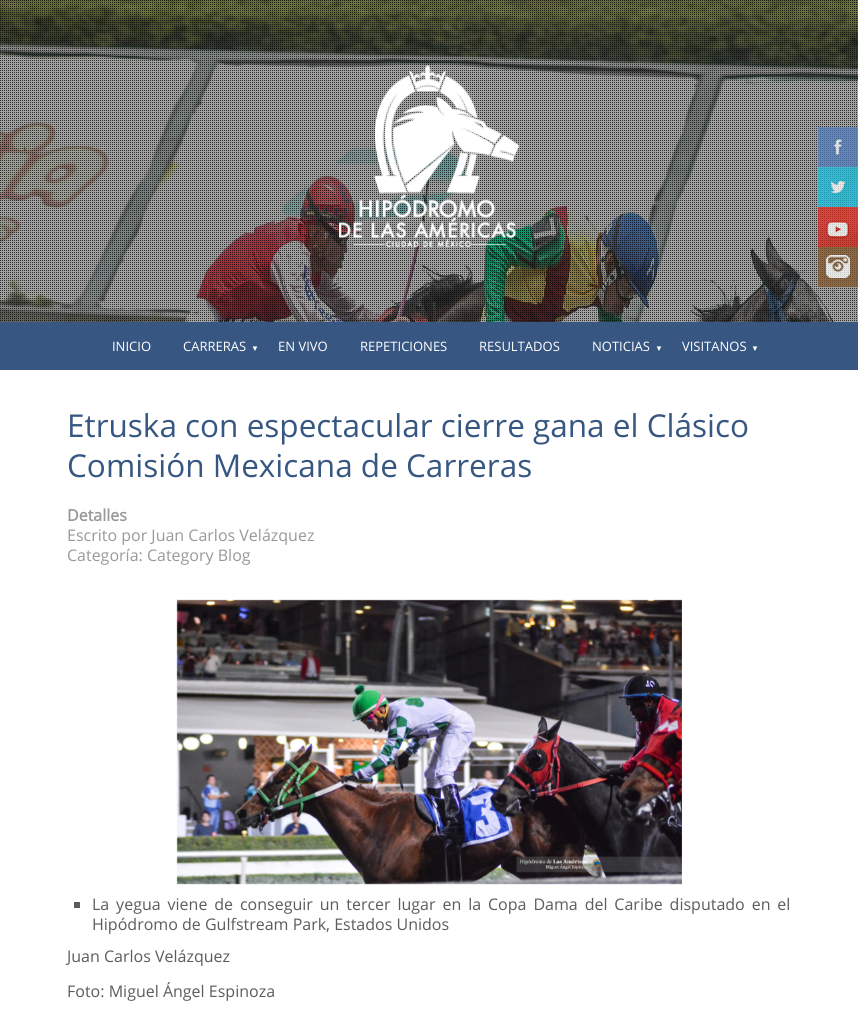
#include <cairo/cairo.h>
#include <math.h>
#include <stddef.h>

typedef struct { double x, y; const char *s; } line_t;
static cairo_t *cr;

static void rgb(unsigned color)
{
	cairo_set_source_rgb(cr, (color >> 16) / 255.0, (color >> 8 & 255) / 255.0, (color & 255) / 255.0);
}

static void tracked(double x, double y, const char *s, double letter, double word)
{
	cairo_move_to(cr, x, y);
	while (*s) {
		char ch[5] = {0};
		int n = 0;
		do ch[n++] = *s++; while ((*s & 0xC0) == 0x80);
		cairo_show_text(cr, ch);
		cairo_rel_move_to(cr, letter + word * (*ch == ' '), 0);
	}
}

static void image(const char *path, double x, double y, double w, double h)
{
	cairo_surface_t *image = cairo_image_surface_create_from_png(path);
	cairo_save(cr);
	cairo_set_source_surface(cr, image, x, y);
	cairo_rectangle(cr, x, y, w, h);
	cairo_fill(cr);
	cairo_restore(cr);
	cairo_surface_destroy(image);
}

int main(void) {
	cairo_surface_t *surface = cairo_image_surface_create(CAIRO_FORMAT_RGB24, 858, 1024);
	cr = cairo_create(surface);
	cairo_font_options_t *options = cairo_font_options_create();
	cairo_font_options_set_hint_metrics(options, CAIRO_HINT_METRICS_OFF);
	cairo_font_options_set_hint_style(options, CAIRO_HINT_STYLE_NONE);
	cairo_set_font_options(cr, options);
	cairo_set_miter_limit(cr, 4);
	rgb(0xffffff);
	cairo_paint(cr);
	image("img/1.png", 0, 0, 858, 322);
	image("img/2.png", 0, 0, 858, 322);
	image("img/3.png", 339, 65, 180, 182);
	image("img/4.png", 818, 127, 40, 40);
	image("img/5.png", 818, 167, 40, 40);
	image("img/6.png", 818, 207, 40, 40);
	image("img/7.png", 818, 247, 40, 40);
	rgb(0x375782);
	cairo_rectangle(cr, 0, 322, 858, 48);
	cairo_fill(cr);
	image("img/8.png", 176, 599, 506, 286);
	rgb(0x5c5c5c);
	cairo_rectangle(cr, 74, 902, 6, 6);
	cairo_fill(cr);
	cairo_select_font_face(cr, "Open Sans", CAIRO_FONT_SLANT_NORMAL, CAIRO_FONT_WEIGHT_NORMAL);
	cairo_set_font_size(cr, 13);
	rgb(0xffffff);
	cairo_move_to(cr, 112, 351);
	cairo_show_text(cr, "INICIO");
	cairo_move_to(cr, 183, 351);
	cairo_show_text(cr, "CARRERAS");
	cairo_select_font_face(cr, "Liberation Serif", CAIRO_FONT_SLANT_NORMAL, CAIRO_FONT_WEIGHT_NORMAL);
	cairo_set_font_size(cr, 8);
	cairo_move_to(cr, 251, 351);
	cairo_show_text(cr, "▼");
	cairo_select_font_face(cr, "Open Sans", CAIRO_FONT_SLANT_NORMAL, CAIRO_FONT_WEIGHT_NORMAL);
	cairo_set_font_size(cr, 13);
	{
		static const line_t items[] = {
			{278, 351, "EN VIVO"},
			{360, 351, "REPETICIONES"},
			{479, 351, "RESULTADOS"},
			{592, 351, "NOTICIAS"},
		};
		for (size_t i = 0; i < sizeof items / sizeof *items; i++) {
			cairo_move_to(cr, items[i].x, items[i].y);
			cairo_show_text(cr, items[i].s);
		}
	}
	cairo_select_font_face(cr, "Liberation Serif", CAIRO_FONT_SLANT_NORMAL, CAIRO_FONT_WEIGHT_NORMAL);
	cairo_set_font_size(cr, 8);
	cairo_move_to(cr, 655, 351);
	cairo_show_text(cr, "▼");
	cairo_select_font_face(cr, "Open Sans", CAIRO_FONT_SLANT_NORMAL, CAIRO_FONT_WEIGHT_NORMAL);
	cairo_set_font_size(cr, 13);
	cairo_move_to(cr, 682, 351);
	cairo_show_text(cr, "VISITANOS");
	cairo_select_font_face(cr, "Liberation Serif", CAIRO_FONT_SLANT_NORMAL, CAIRO_FONT_WEIGHT_NORMAL);
	cairo_set_font_size(cr, 8);
	cairo_move_to(cr, 751, 351);
	cairo_show_text(cr, "▼");
	cairo_select_font_face(cr, "Open Sans", CAIRO_FONT_SLANT_NORMAL, CAIRO_FONT_WEIGHT_NORMAL);
	cairo_set_font_size(cr, 31.5);
	rgb(0x375782);
	cairo_move_to(cr, 67, 437);
	cairo_show_text(cr, "Etruska con espectacular cierre gana el Clásico");
	cairo_move_to(cr, 67, 477);
	cairo_show_text(cr, "Comisión Mexicana de Carreras");
	cairo_select_font_face(cr, "Open Sans", CAIRO_FONT_SLANT_NORMAL, CAIRO_FONT_WEIGHT_BOLD);
	cairo_set_font_size(cr, 16);
	rgb(0x999999);
	cairo_move_to(cr, 67, 521);
	cairo_show_text(cr, "Detalles");
	cairo_select_font_face(cr, "Open Sans", CAIRO_FONT_SLANT_NORMAL, CAIRO_FONT_WEIGHT_NORMAL);
	cairo_move_to(cr, 67, 541);
	cairo_show_text(cr, "Escrito por Juan Carlos Velázquez");
	cairo_move_to(cr, 67, 561);
	cairo_show_text(cr, "Categoría: Category Blog");
	rgb(0x5c5c5c);
	tracked(92, 910, "La yegua viene de conseguir un tercer lugar en la Copa Dama del Caribe disputado en el", 0, 2.75);
	{
		static const line_t items[] = {
			{92, 930, "Hipódromo de Gulfstream Park, Estados Unidos"},
			{67, 962, "Juan Carlos Velázquez"},
			{67, 997, "Foto: Miguel Ángel Espinoza"},
		};
		for (size_t i = 0; i < sizeof items / sizeof *items; i++) {
			cairo_move_to(cr, items[i].x, items[i].y);
			cairo_show_text(cr, items[i].s);
		}
	}
	cairo_surface_write_to_png(surface, "page.png");
	cairo_font_options_destroy(options);
	cairo_destroy(cr);
	cairo_surface_destroy(surface);
	return 0;
}
